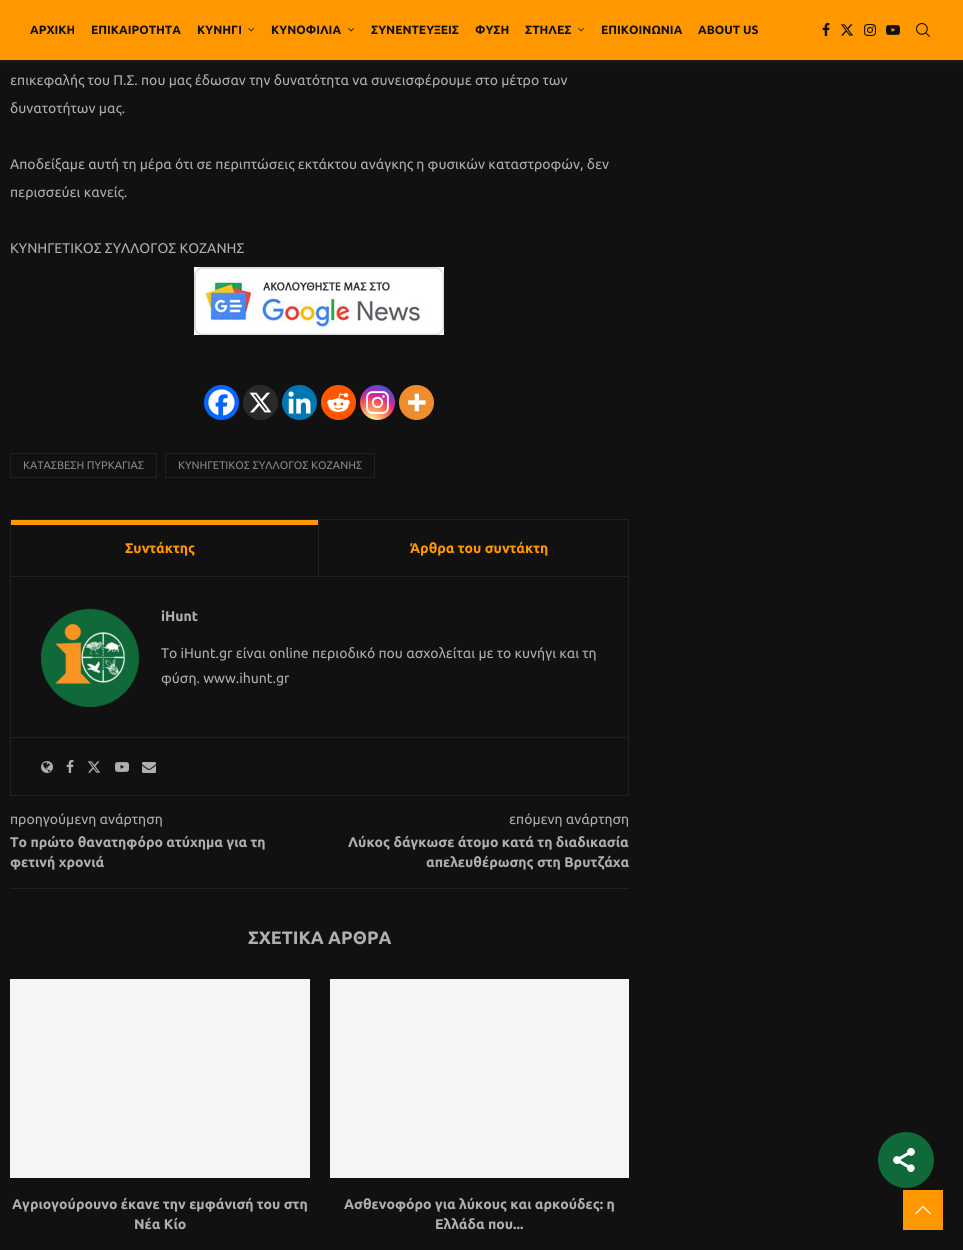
#include <cairo/cairo.h>
#include <math.h>
#include <stddef.h>

typedef struct { double x, y; const char *s; } line_t;
typedef struct { double x, y, w, h; unsigned color; } box_t;
static cairo_t *cr;

static void rgb(unsigned color)
{
	cairo_set_source_rgb(cr, (color >> 16) / 255.0, (color >> 8 & 255) / 255.0, (color & 255) / 255.0);
}

static void rrect(double x, double y, double w, double h, double r)
{
	cairo_new_sub_path(cr);
	cairo_arc(cr, x + w - r, y + h - r, r, 0, M_PI / 2);
	cairo_arc(cr, x + r, y + h - r, r, M_PI / 2, M_PI);
	cairo_arc(cr, x + r, y + r, r, M_PI, 1.5 * M_PI);
	cairo_arc(cr, x + w - r, y + r, r, 1.5 * M_PI, 2 * M_PI);
	cairo_close_path(cr);
}

static void soft_shadow(double x, double y, double w, double h, double r, double blur, double alpha)
{
	cairo_push_group_with_content(cr, CAIRO_CONTENT_ALPHA);
	cairo_set_operator(cr, CAIRO_OPERATOR_SOURCE);
	for (int i = 15; i >= -15 && fmin(w, h) + blur * i / 3 > 0; i -= 2) {
		double e = blur * i / 6;
		cairo_set_source_rgba(cr, 0, 0, 0, alpha * erfc((i - 1) / 8.5) / 2);
		rrect(x - e, y - e, w + 2 * e, h + 2 * e, fmax(0, fmin(r + e + blur * .6, fmin(w, h) / 2 + e)));
		cairo_fill(cr);
	}
	cairo_pattern_t *soft = cairo_pop_group(cr);
	cairo_mask(cr, soft);
	cairo_pattern_destroy(soft);
}

static void image(const char *path, double x, double y, double w, double h)
{
	cairo_surface_t *image = cairo_image_surface_create_from_png(path);
	cairo_save(cr);
	cairo_set_source_surface(cr, image, x, y);
	cairo_rectangle(cr, x, y, w, h);
	cairo_fill(cr);
	cairo_restore(cr);
	cairo_surface_destroy(image);
}

int main(void) {
	cairo_surface_t *surface = cairo_image_surface_create(CAIRO_FORMAT_RGB24, 963, 1250);
	cr = cairo_create(surface);
	cairo_font_options_t *options = cairo_font_options_create();
	cairo_font_options_set_hint_metrics(options, CAIRO_HINT_METRICS_OFF);
	cairo_font_options_set_hint_style(options, CAIRO_HINT_STYLE_NONE);
	cairo_set_font_options(cr, options);
	cairo_set_miter_limit(cr, 4);
	cairo_pattern_t *gradient;
	rgb(0x111111);
	cairo_paint(cr);
	rgb(0xffffff);
	soft_shadow(0, 1, 963, 60, 0, 2.5, 0.08);
	rgb(0xff9800);
	cairo_rectangle(cr, 0, 0, 963, 60);
	cairo_fill(cr);
	image("img/1.png", 248, 28, 7, 4);
	image("img/2.png", 348, 28, 6, 4);
	image("img/3.png", 578, 28, 6, 4);
	image("img/4.png", 822, 23, 8, 13);
	image("img/5.png", 840, 24, 14, 12);
	image("img/6.png", 864, 24, 12, 12);
	image("img/7.png", 886, 25, 14, 10);
	image("img/8.png", 916, 23, 14, 14);
	image("img/9.png", 194, 267, 250, 68);
	rgb(0x0765fe);
	cairo_arc(cr, 221.5, 402.5, 17.5, 0, 2 * M_PI);
	cairo_fill(cr);
	image("img/10.png", 208, 389, 27, 27);
	rgb(0x2a2a2a);
	cairo_arc(cr, 260.5, 402.5, 17.5, 0, 2 * M_PI);
	cairo_fill(cr);
	image("img/11.png", 249, 392, 23, 21);
	rgb(0x0077b5);
	cairo_arc(cr, 299.5, 402.5, 17.5, 0, 2 * M_PI);
	cairo_fill(cr);
	image("img/12.png", 288, 391, 23, 23);
	rgb(0xff5700);
	cairo_arc(cr, 338.5, 402.5, 17.5, 0, 2 * M_PI);
	cairo_fill(cr);
	image("img/13.png", 327, 393, 23, 19);
	gradient = cairo_pattern_create_radial(371, 422, 0, 371, 422, 45);
	cairo_pattern_add_color_stop_rgba(gradient, 0, 0.992, 0.957, 0.592, 1);
	cairo_pattern_add_color_stop_rgba(gradient, 0.05, 0.992, 0.957, 0.592, 1);
	cairo_pattern_add_color_stop_rgba(gradient, 0.45, 0.992, 0.349, 0.286, 1);
	cairo_pattern_add_color_stop_rgba(gradient, 0.6, 0.839, 0.141, 0.624, 1);
	cairo_pattern_add_color_stop_rgba(gradient, 0.9, 0.157, 0.353, 0.922, 1);
	cairo_set_source(cr, gradient);
	cairo_pattern_destroy(gradient);
	cairo_arc(cr, 377.5, 402.5, 17.5, 0, 2 * M_PI);
	cairo_fill(cr);
	image("img/14.png", 366, 391, 23, 23);
	rgb(0xee8e2d);
	cairo_arc(cr, 416.5, 402.5, 17.5, 0, 2 * M_PI);
	cairo_fill(cr);
	image("img/15.png", 408, 393, 18, 19);
	cairo_rectangle(cr, 10.5, 453.5, 146, 24);
	rgb(0x212121);
	cairo_set_line_width(cr, 1);
	cairo_stroke(cr);
	cairo_rectangle(cr, 165.5, 453.5, 209, 24);
	cairo_stroke(cr);
	{
		static const box_t items[] = {
			{10, 519, 619, 1, 0x212121},
			{628, 519, 1, 276, 0x212121},
			{10, 519, 1, 276, 0x212121},
			{11, 576, 617, 1, 0x212121},
			{318, 520, 1, 56, 0x212121},
			{11, 520, 307, 5, 0xff9800},
		};
		for (size_t i = 0; i < sizeof items / sizeof *items; i++) {
			rgb(items[i].color);
			cairo_rectangle(cr, items[i].x, items[i].y, items[i].w, items[i].h);
			cairo_fill(cr);
		}
	}
	image("img/16.png", 41, 608, 99, 99);
	rgb(0x212121);
	cairo_rectangle(cr, 11, 737, 617, 1);
	cairo_fill(cr);
	image("img/17.png", 41, 761, 12, 12);
	image("img/18.png", 66, 760, 8, 13);
	image("img/19.png", 87, 761, 14, 12);
	image("img/20.png", 115, 762, 14, 10);
	image("img/21.png", 142, 762, 14, 11);
	{
		static const box_t items[] = {
			{10, 795, 619, 1, 0x212121},
			{10, 888, 619, 1, 0x212121},
			{10, 979, 300, 199, 0xf5f5f5},
			{330, 979, 299, 199, 0xf5f5f5},
		};
		for (size_t i = 0; i < sizeof items / sizeof *items; i++) {
			rgb(items[i].color);
			cairo_rectangle(cr, items[i].x, items[i].y, items[i].w, items[i].h);
			cairo_fill(cr);
		}
	}
	rgb(0x0f6938);
	cairo_arc(cr, 906, 1160, 28, 0, 2 * M_PI);
	cairo_fill(cr);
	image("img/22.png", 893, 1148, 22, 24);
	rgb(0xff9800);
	cairo_rectangle(cr, 903, 1190, 40, 40);
	cairo_fill(cr);
	image("img/23.png", 915, 1205, 16, 10);
	cairo_select_font_face(cr, "Ubuntu", CAIRO_FONT_SLANT_NORMAL, CAIRO_FONT_WEIGHT_BOLD);
	cairo_set_font_size(cr, 12);
	rgb(0x111111);
	{
		static const line_t items[] = {
			{30, 34, "ΑΡΧΙΚΗ"},
			{91, 34, "ΕΠΙΚΑΙΡΟΤΗΤΑ"},
			{197, 34, "ΚΥΝΗΓΙ"},
			{271, 34, "ΚΥΝΟΦΙΛΙΑ"},
			{371, 34, "ΣΥΝΕΝΤΕΥΞΕΙΣ"},
			{475, 34, "ΦΥΣΗ"},
			{525, 34, "ΣΤΗΛΕΣ"},
			{601, 34, "ΕΠΙΚΟΙΝΩΝΙΑ"},
			{698, 34, "ABOUT US"},
		};
		for (size_t i = 0; i < sizeof items / sizeof *items; i++) {
			cairo_move_to(cr, items[i].x, items[i].y);
			cairo_show_text(cr, items[i].s);
		}
	}
	cairo_select_font_face(cr, "Ubuntu", CAIRO_FONT_SLANT_NORMAL, CAIRO_FONT_WEIGHT_NORMAL);
	cairo_set_font_size(cr, 14);
	rgb(0xafafaf);
	{
		static const line_t items[] = {
			{10, 85, "επικεφαλής του Π.Σ. που μας έδωσαν την δυνατότητα να συνεισφέρουμε στο μέτρο των"},
			{10, 113, "δυνατοτήτων μας."},
			{10, 169, "Αποδείξαμε αυτή τη μέρα ότι σε περιπτώσεις εκτάκτου ανάγκης η φυσικών καταστροφών, δεν"},
			{10, 197, "περισσεύει κανείς."},
			{10, 253, "ΚΥΝΗΓΕΤΙΚΟΣ ΣΥΛΛΟΓΟΣ ΚΟΖΑΝΗΣ"},
		};
		for (size_t i = 0; i < sizeof items / sizeof *items; i++) {
			cairo_move_to(cr, items[i].x, items[i].y);
			cairo_show_text(cr, items[i].s);
		}
	}
	cairo_set_font_size(cr, 11);
	rgb(0x888888);
	cairo_move_to(cr, 23, 469);
	cairo_show_text(cr, "ΚΑΤΑΣΒΕΣΗ ΠΥΡΚΑΓΙΑΣ");
	cairo_move_to(cr, 178, 469);
	cairo_show_text(cr, "ΚΥΝΗΓΕΤΙΚΟΣ ΣΥΛΛΟΓΟΣ ΚΟΖΑΝΗΣ");
	cairo_select_font_face(cr, "Ubuntu", CAIRO_FONT_SLANT_NORMAL, CAIRO_FONT_WEIGHT_BOLD);
	cairo_set_font_size(cr, 14);
	rgb(0xff9800);
	cairo_move_to(cr, 125, 553);
	cairo_show_text(cr, "Συντάκτης");
	cairo_move_to(cr, 410, 553);
	cairo_show_text(cr, "Άρθρα του συντάκτη");
	rgb(0xafafaf);
	cairo_move_to(cr, 161, 621);
	cairo_show_text(cr, "iHunt");
	cairo_select_font_face(cr, "Ubuntu", CAIRO_FONT_SLANT_NORMAL, CAIRO_FONT_WEIGHT_NORMAL);
	{
		static const line_t items[] = {
			{161, 658, "Το iHunt.gr είναι online περιοδικό που ασχολείται με το κυνήγι και τη"},
			{161, 683, "φύση. www.ihunt.gr"},
			{10, 824, "προηγούμενη ανάρτηση"},
		};
		for (size_t i = 0; i < sizeof items / sizeof *items; i++) {
			cairo_move_to(cr, items[i].x, items[i].y);
			cairo_show_text(cr, items[i].s);
		}
	}
	cairo_select_font_face(cr, "Ubuntu", CAIRO_FONT_SLANT_NORMAL, CAIRO_FONT_WEIGHT_BOLD);
	cairo_move_to(cr, 10, 847);
	cairo_show_text(cr, "Το πρώτο θανατηφόρο ατύχημα για τη");
	cairo_move_to(cr, 10, 867);
	cairo_show_text(cr, "φετινή χρονιά");
	cairo_select_font_face(cr, "Ubuntu", CAIRO_FONT_SLANT_NORMAL, CAIRO_FONT_WEIGHT_NORMAL);
	cairo_move_to(cr, 509, 824);
	cairo_show_text(cr, "επόμενη ανάρτηση");
	cairo_select_font_face(cr, "Ubuntu", CAIRO_FONT_SLANT_NORMAL, CAIRO_FONT_WEIGHT_BOLD);
	cairo_move_to(cr, 348, 847);
	cairo_show_text(cr, "Λύκος δάγκωσε άτομο κατά τη διαδικασία");
	cairo_move_to(cr, 426, 867);
	cairo_show_text(cr, "απελευθέρωσης στη Βρυτζάχα");
	cairo_set_font_size(cr, 18);
	cairo_move_to(cr, 248, 944);
	cairo_show_text(cr, "ΣΧΕΤΙΚΑ ΑΡΘΡΑ");
	cairo_set_font_size(cr, 14);
	{
		static const line_t items[] = {
			{12, 1209, "Αγριογούρουνο έκανε την εμφάνισή του στη"},
			{134, 1229, "Νέα Κίο"},
			{344, 1209, "Ασθενοφόρο για λύκους και αρκούδες: η"},
			{435, 1229, "Ελλάδα που..."},
		};
		for (size_t i = 0; i < sizeof items / sizeof *items; i++) {
			cairo_move_to(cr, items[i].x, items[i].y);
			cairo_show_text(cr, items[i].s);
		}
	}
	cairo_surface_write_to_png(surface, "page.png");
	cairo_font_options_destroy(options);
	cairo_destroy(cr);
	cairo_surface_destroy(surface);
	return 0;
}
